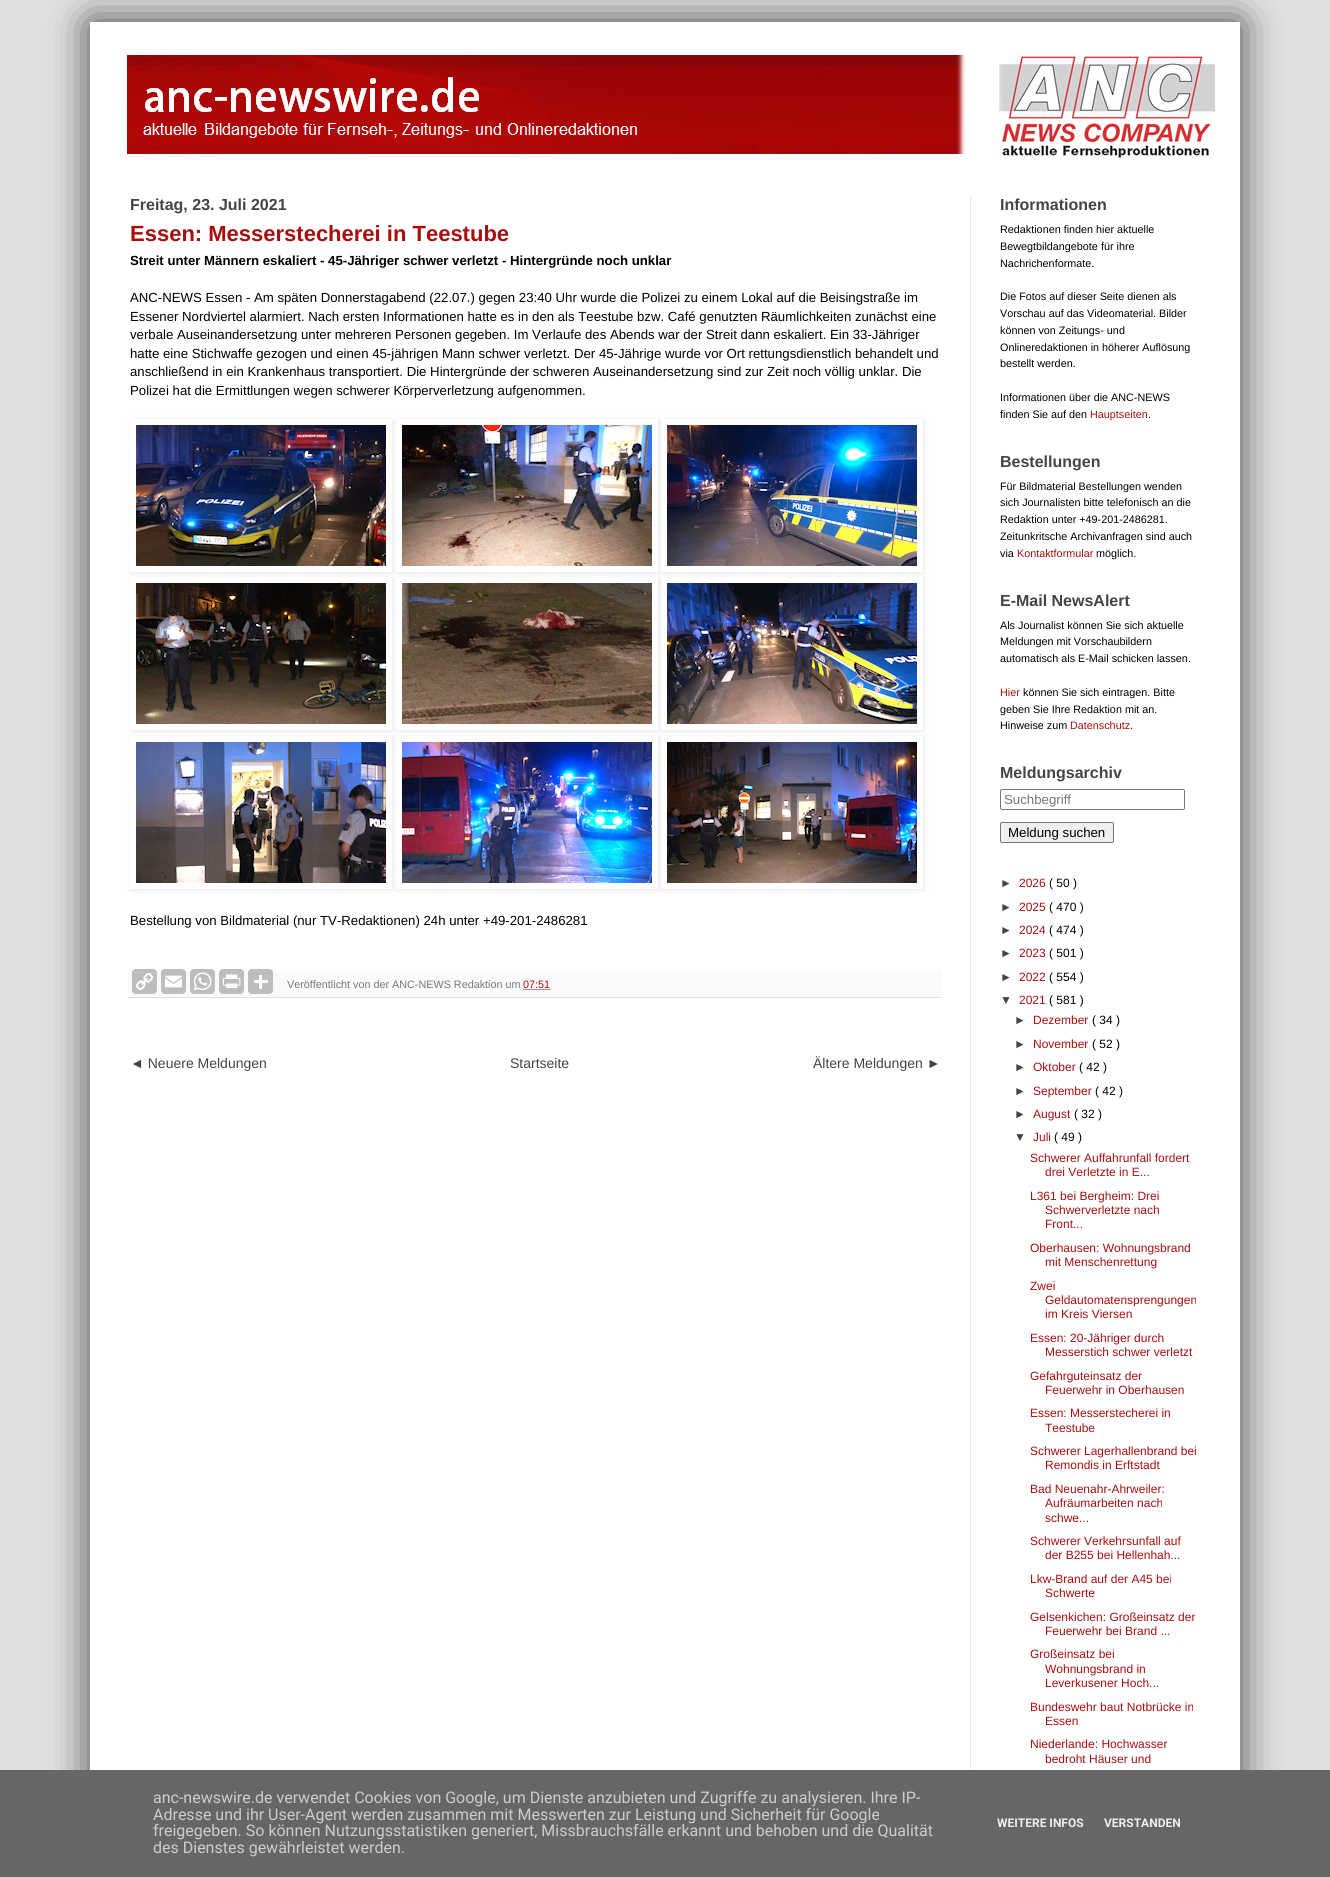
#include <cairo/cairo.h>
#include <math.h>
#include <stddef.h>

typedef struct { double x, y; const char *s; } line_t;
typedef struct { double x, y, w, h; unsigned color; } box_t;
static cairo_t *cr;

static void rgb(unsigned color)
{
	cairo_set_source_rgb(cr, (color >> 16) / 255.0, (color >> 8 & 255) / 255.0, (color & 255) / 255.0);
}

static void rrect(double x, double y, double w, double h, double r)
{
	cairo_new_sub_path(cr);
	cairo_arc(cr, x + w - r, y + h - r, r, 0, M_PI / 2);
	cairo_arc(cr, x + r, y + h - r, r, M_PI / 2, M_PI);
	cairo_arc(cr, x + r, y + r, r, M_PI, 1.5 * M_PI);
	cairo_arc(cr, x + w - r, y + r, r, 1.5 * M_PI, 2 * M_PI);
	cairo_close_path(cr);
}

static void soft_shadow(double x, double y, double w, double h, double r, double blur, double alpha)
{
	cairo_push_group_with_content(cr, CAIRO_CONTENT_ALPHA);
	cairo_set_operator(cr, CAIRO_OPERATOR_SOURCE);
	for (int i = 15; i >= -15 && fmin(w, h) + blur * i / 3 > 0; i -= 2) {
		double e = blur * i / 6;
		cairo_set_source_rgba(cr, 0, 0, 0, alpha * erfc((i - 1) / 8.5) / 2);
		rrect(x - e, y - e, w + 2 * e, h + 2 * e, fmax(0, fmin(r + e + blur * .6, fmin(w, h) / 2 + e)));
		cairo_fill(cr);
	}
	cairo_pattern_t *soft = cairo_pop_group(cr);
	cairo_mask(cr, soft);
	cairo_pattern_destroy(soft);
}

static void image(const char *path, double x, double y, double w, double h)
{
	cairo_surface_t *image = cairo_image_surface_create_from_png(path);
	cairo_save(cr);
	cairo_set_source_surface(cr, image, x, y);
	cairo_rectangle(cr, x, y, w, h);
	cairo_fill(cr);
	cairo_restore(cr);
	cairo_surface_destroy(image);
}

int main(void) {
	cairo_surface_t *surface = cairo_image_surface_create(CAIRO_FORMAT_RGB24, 1330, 1877);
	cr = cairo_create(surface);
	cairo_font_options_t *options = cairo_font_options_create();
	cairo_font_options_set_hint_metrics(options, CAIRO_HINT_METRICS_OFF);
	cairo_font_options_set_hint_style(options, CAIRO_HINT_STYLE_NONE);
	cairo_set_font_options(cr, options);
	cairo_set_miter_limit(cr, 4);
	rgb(0xe0e0e0);
	cairo_paint(cr);
	rgb(0x000000);
	soft_shadow(90, 22, 1150, 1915, 0, 20, 0.7);
	rgb(0xffffff);
	cairo_rectangle(cr, 90, 22, 1150, 1748);
	cairo_fill(cr);
	image("img/1.png", 125, 55, 1090, 103);
	rgb(0xeaeaea);
	cairo_rectangle(cr, 970, 196, 1, 1574);
	cairo_fill(cr);
	cairo_save(cr);
	cairo_set_fill_rule(cr, CAIRO_FILL_RULE_EVEN_ODD);
	cairo_new_path(cr);
	cairo_move_to(cr, 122, 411);
	cairo_line_to(cr, 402, 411);
	cairo_line_to(cr, 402, 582);
	cairo_line_to(cr, 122, 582);
	cairo_close_path(cr);
	cairo_move_to(cr, 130, 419);
	cairo_line_to(cr, 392, 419);
	cairo_line_to(cr, 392, 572);
	cairo_line_to(cr, 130, 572);
	cairo_close_path(cr);
	cairo_clip(cr);
	rgb(0x000000);
	soft_shadow(131, 420, 262, 153, 0, 2.5, 0.1);
	cairo_restore(cr);
	cairo_save(cr);
	cairo_set_fill_rule(cr, CAIRO_FILL_RULE_EVEN_ODD);
	cairo_new_path(cr);
	cairo_move_to(cr, 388, 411);
	cairo_line_to(cr, 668, 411);
	cairo_line_to(cr, 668, 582);
	cairo_line_to(cr, 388, 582);
	cairo_close_path(cr);
	cairo_move_to(cr, 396, 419);
	cairo_line_to(cr, 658, 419);
	cairo_line_to(cr, 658, 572);
	cairo_line_to(cr, 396, 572);
	cairo_close_path(cr);
	cairo_clip(cr);
	rgb(0x000000);
	soft_shadow(397, 420, 262, 153, 0, 2.5, 0.1);
	cairo_restore(cr);
	cairo_save(cr);
	cairo_set_fill_rule(cr, CAIRO_FILL_RULE_EVEN_ODD);
	cairo_new_path(cr);
	cairo_move_to(cr, 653, 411);
	cairo_line_to(cr, 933, 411);
	cairo_line_to(cr, 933, 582);
	cairo_line_to(cr, 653, 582);
	cairo_close_path(cr);
	cairo_move_to(cr, 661, 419);
	cairo_line_to(cr, 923, 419);
	cairo_line_to(cr, 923, 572);
	cairo_line_to(cr, 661, 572);
	cairo_close_path(cr);
	cairo_clip(cr);
	rgb(0x000000);
	soft_shadow(662, 420, 262, 153, 0, 2.5, 0.1);
	cairo_restore(cr);
	image("img/2.png", 136, 425, 250, 141);
	image("img/3.png", 402, 425, 250, 141);
	image("img/4.png", 667, 425, 250, 141);
	cairo_save(cr);
	cairo_set_fill_rule(cr, CAIRO_FILL_RULE_EVEN_ODD);
	cairo_new_path(cr);
	cairo_move_to(cr, 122, 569);
	cairo_line_to(cr, 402, 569);
	cairo_line_to(cr, 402, 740);
	cairo_line_to(cr, 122, 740);
	cairo_close_path(cr);
	cairo_move_to(cr, 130, 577);
	cairo_line_to(cr, 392, 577);
	cairo_line_to(cr, 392, 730);
	cairo_line_to(cr, 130, 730);
	cairo_close_path(cr);
	cairo_clip(cr);
	rgb(0x000000);
	soft_shadow(131, 578, 262, 153, 0, 2.5, 0.1);
	cairo_restore(cr);
	cairo_save(cr);
	cairo_set_fill_rule(cr, CAIRO_FILL_RULE_EVEN_ODD);
	cairo_new_path(cr);
	cairo_move_to(cr, 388, 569);
	cairo_line_to(cr, 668, 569);
	cairo_line_to(cr, 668, 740);
	cairo_line_to(cr, 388, 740);
	cairo_close_path(cr);
	cairo_move_to(cr, 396, 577);
	cairo_line_to(cr, 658, 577);
	cairo_line_to(cr, 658, 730);
	cairo_line_to(cr, 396, 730);
	cairo_close_path(cr);
	cairo_clip(cr);
	rgb(0x000000);
	soft_shadow(397, 578, 262, 153, 0, 2.5, 0.1);
	cairo_restore(cr);
	cairo_save(cr);
	cairo_set_fill_rule(cr, CAIRO_FILL_RULE_EVEN_ODD);
	cairo_new_path(cr);
	cairo_move_to(cr, 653, 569);
	cairo_line_to(cr, 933, 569);
	cairo_line_to(cr, 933, 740);
	cairo_line_to(cr, 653, 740);
	cairo_close_path(cr);
	cairo_move_to(cr, 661, 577);
	cairo_line_to(cr, 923, 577);
	cairo_line_to(cr, 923, 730);
	cairo_line_to(cr, 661, 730);
	cairo_close_path(cr);
	cairo_clip(cr);
	rgb(0x000000);
	soft_shadow(662, 578, 262, 153, 0, 2.5, 0.1);
	cairo_restore(cr);
	image("img/5.png", 136, 583, 250, 141);
	image("img/6.png", 402, 583, 250, 141);
	image("img/7.png", 667, 583, 250, 141);
	cairo_save(cr);
	cairo_set_fill_rule(cr, CAIRO_FILL_RULE_EVEN_ODD);
	cairo_new_path(cr);
	cairo_move_to(cr, 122, 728);
	cairo_line_to(cr, 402, 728);
	cairo_line_to(cr, 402, 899);
	cairo_line_to(cr, 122, 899);
	cairo_close_path(cr);
	cairo_move_to(cr, 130, 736);
	cairo_line_to(cr, 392, 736);
	cairo_line_to(cr, 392, 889);
	cairo_line_to(cr, 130, 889);
	cairo_close_path(cr);
	cairo_clip(cr);
	rgb(0x000000);
	soft_shadow(131, 737, 262, 153, 0, 2.5, 0.1);
	cairo_restore(cr);
	cairo_save(cr);
	cairo_set_fill_rule(cr, CAIRO_FILL_RULE_EVEN_ODD);
	cairo_new_path(cr);
	cairo_move_to(cr, 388, 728);
	cairo_line_to(cr, 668, 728);
	cairo_line_to(cr, 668, 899);
	cairo_line_to(cr, 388, 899);
	cairo_close_path(cr);
	cairo_move_to(cr, 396, 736);
	cairo_line_to(cr, 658, 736);
	cairo_line_to(cr, 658, 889);
	cairo_line_to(cr, 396, 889);
	cairo_close_path(cr);
	cairo_clip(cr);
	rgb(0x000000);
	soft_shadow(397, 737, 262, 153, 0, 2.5, 0.1);
	cairo_restore(cr);
	cairo_save(cr);
	cairo_set_fill_rule(cr, CAIRO_FILL_RULE_EVEN_ODD);
	cairo_new_path(cr);
	cairo_move_to(cr, 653, 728);
	cairo_line_to(cr, 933, 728);
	cairo_line_to(cr, 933, 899);
	cairo_line_to(cr, 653, 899);
	cairo_close_path(cr);
	cairo_move_to(cr, 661, 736);
	cairo_line_to(cr, 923, 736);
	cairo_line_to(cr, 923, 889);
	cairo_line_to(cr, 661, 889);
	cairo_close_path(cr);
	cairo_clip(cr);
	rgb(0x000000);
	soft_shadow(662, 737, 262, 153, 0, 2.5, 0.1);
	cairo_restore(cr);
	image("img/8.png", 136, 742, 250, 141);
	image("img/9.png", 402, 742, 250, 141);
	image("img/10.png", 667, 742, 250, 141);
	rgb(0xfafafa);
	cairo_rectangle(cr, 128, 971, 814, 26);
	cairo_fill(cr);
	rgb(0xbdbdbd);
	rrect(132, 969, 25, 25, 4);
	cairo_fill(cr);
	image("img/11.png", 136, 973, 17, 17);
	rrect(161, 969, 25, 25, 4);
	cairo_fill(cr);
	image("img/12.png", 164, 975, 19, 13);
	rrect(190, 969, 25, 25, 4);
	cairo_fill(cr);
	image("img/13.png", 193, 972, 19, 19);
	rrect(219, 969, 25, 25, 4);
	cairo_fill(cr);
	image("img/14.png", 222, 974, 19, 15);
	rrect(248, 969, 25, 25, 4);
	cairo_fill(cr);
	{
		static const box_t items[] = {
			{259, 975, 3, 14, 0xffffff},
			{254, 980, 14, 3, 0xffffff},
			{128, 997, 814, 1, 0xe1e1e1},
		};
		for (size_t i = 0; i < sizeof items / sizeof *items; i++) {
			rgb(items[i].color);
			cairo_rectangle(cr, items[i].x, items[i].y, items[i].w, items[i].h);
			cairo_fill(cr);
		}
	}
	cairo_new_path(cr);
	cairo_move_to(cr, 523.5, 989.5);
	cairo_line_to(cr, 550.5, 989.5);
	rgb(0xa80e0e);
	cairo_set_line_width(cr, 1);
	cairo_set_dash(cr, (double[]){1, 1}, 2, 0);
	cairo_stroke(cr);
	rrect(1000.5, 789.5, 184, 20, 1.5);
	rgb(0x767676);
	cairo_set_dash(cr, NULL, 0, 0);
	cairo_stroke(cr);
	rgb(0xefefef);
	rrect(1000.5, 822.5, 113, 20, 1.5);
	cairo_fill_preserve(cr);
	rgb(0x767676);
	cairo_stroke(cr);
	rgb(0x666666);
	cairo_rectangle(cr, 0, 1770, 1330, 107);
	cairo_fill(cr);
	cairo_select_font_face(cr, "Liberation Sans", CAIRO_FONT_SLANT_NORMAL, CAIRO_FONT_WEIGHT_BOLD);
	cairo_set_font_size(cr, 16);
	rgb(0x444444);
	cairo_move_to(cr, 130, 210);
	cairo_show_text(cr, "Freitag, 23. Juli 2021");
	cairo_set_font_size(cr, 22);
	rgb(0xa80e0e);
	cairo_move_to(cr, 130, 241);
	cairo_show_text(cr, "Essen: Messerstecherei in Teestube");
	cairo_set_font_size(cr, 13.2);
	rgb(0x000000);
	cairo_move_to(cr, 130, 265);
	cairo_show_text(cr, "Streit unter Männern eskaliert - 45-Jähriger schwer verletzt - Hintergründe noch unklar");
	cairo_select_font_face(cr, "Liberation Sans", CAIRO_FONT_SLANT_NORMAL, CAIRO_FONT_WEIGHT_NORMAL);
	{
		static const line_t items[] = {
			{130, 302, "ANC-NEWS Essen - Am späten Donnerstagabend (22.07.) gegen 23:40 Uhr wurde die Polizei zu einem Lokal auf die Beisingstraße im"},
			{130, 321, "Essener Nordviertel alarmiert. Nach ersten Informationen hatte es in den als Teestube bzw. Café genutzten Räumlichkeiten zunächst eine"},
			{130, 339, "verbale Auseinandersetzung unter mehreren Personen gegeben. Im Verlaufe des Abends war der Streit dann eskaliert. Ein 33-Jähriger"},
			{130, 358, "hatte eine Stichwaffe gezogen und einen 45-jährigen Mann schwer verletzt. Der 45-Jährige wurde vor Ort rettungsdienstlich behandelt und"},
			{130, 376, "anschließend in ein Krankenhaus transportiert. Die Hintergründe der schweren Auseinandersetzung sind zur Zeit noch völlig unklar. Die"},
			{130, 395, "Polizei hat die Ermittlungen wegen schwerer Körperverletzung aufgenommen."},
			{130, 925, "Bestellung von Bildmaterial (nur TV-Redaktionen) 24h unter +49-201-2486281"},
		};
		for (size_t i = 0; i < sizeof items / sizeof *items; i++) {
			cairo_move_to(cr, items[i].x, items[i].y);
			cairo_show_text(cr, items[i].s);
		}
	}
	cairo_set_font_size(cr, 10.8);
	rgb(0x767676);
	cairo_move_to(cr, 287, 988);
	cairo_show_text(cr, "Veröffentlicht von der ANC-NEWS Redaktion um");
	rgb(0xa80e0e);
	cairo_move_to(cr, 523, 988);
	cairo_show_text(cr, "07:51");
	cairo_set_font_size(cr, 14);
	rgb(0x444444);
	{
		static const line_t items[] = {
			{130, 1068, "◄ Neuere Meldungen"},
			{510, 1068, "Startseite"},
			{813, 1068, "Ältere Meldungen ►"},
		};
		for (size_t i = 0; i < sizeof items / sizeof *items; i++) {
			cairo_move_to(cr, items[i].x, items[i].y);
			cairo_show_text(cr, items[i].s);
		}
	}
	cairo_select_font_face(cr, "Liberation Sans", CAIRO_FONT_SLANT_NORMAL, CAIRO_FONT_WEIGHT_BOLD);
	cairo_set_font_size(cr, 16);
	cairo_move_to(cr, 1000, 210);
	cairo_show_text(cr, "Informationen");
	cairo_select_font_face(cr, "Liberation Sans", CAIRO_FONT_SLANT_NORMAL, CAIRO_FONT_WEIGHT_NORMAL);
	cairo_set_font_size(cr, 10.8);
	rgb(0x000000);
	{
		static const line_t items[] = {
			{1000, 233, "Redaktionen finden hier aktuelle"},
			{1000, 250, "Bewegtbildangebote für ihre"},
			{1000, 267, "Nachrichenformate."},
			{1000, 300, "Die Fotos auf dieser Seite dienen als"},
			{1000, 317, "Vorschau auf das Videomaterial. Bilder"},
			{1000, 334, "können von Zeitungs- und"},
			{1000, 351, "Onlineredaktionen in höherer Auflösung"},
			{1000, 367, "bestellt werden."},
			{1000, 401, "Informationen über die ANC-NEWS"},
			{1000, 418, "finden Sie auf den"},
		};
		for (size_t i = 0; i < sizeof items / sizeof *items; i++) {
			cairo_move_to(cr, items[i].x, items[i].y);
			cairo_show_text(cr, items[i].s);
		}
	}
	rgb(0xa80e0e);
	cairo_move_to(cr, 1090, 418);
	cairo_show_text(cr, "Hauptseiten");
	rgb(0x000000);
	cairo_move_to(cr, 1148, 418);
	cairo_show_text(cr, ".");
	cairo_select_font_face(cr, "Liberation Sans", CAIRO_FONT_SLANT_NORMAL, CAIRO_FONT_WEIGHT_BOLD);
	cairo_set_font_size(cr, 16);
	rgb(0x444444);
	cairo_move_to(cr, 1000, 467);
	cairo_show_text(cr, "Bestellungen");
	cairo_select_font_face(cr, "Liberation Sans", CAIRO_FONT_SLANT_NORMAL, CAIRO_FONT_WEIGHT_NORMAL);
	cairo_set_font_size(cr, 10.8);
	rgb(0x000000);
	{
		static const line_t items[] = {
			{1000, 490, "Für Bildmaterial Bestellungen wenden"},
			{1000, 506, "sich Journalisten bitte telefonisch an die"},
			{1000, 523, "Redaktion unter +49-201-2486281."},
			{1000, 540, "Zeitunkritsche Archivanfragen sind auch"},
			{1000, 557, "via"},
		};
		for (size_t i = 0; i < sizeof items / sizeof *items; i++) {
			cairo_move_to(cr, items[i].x, items[i].y);
			cairo_show_text(cr, items[i].s);
		}
	}
	rgb(0xa80e0e);
	cairo_move_to(cr, 1017, 557);
	cairo_show_text(cr, "Kontaktformular");
	rgb(0x000000);
	cairo_move_to(cr, 1096, 557);
	cairo_show_text(cr, "möglich.");
	cairo_select_font_face(cr, "Liberation Sans", CAIRO_FONT_SLANT_NORMAL, CAIRO_FONT_WEIGHT_BOLD);
	cairo_set_font_size(cr, 16);
	rgb(0x444444);
	cairo_move_to(cr, 1000, 606);
	cairo_show_text(cr, "E-Mail NewsAlert");
	cairo_select_font_face(cr, "Liberation Sans", CAIRO_FONT_SLANT_NORMAL, CAIRO_FONT_WEIGHT_NORMAL);
	cairo_set_font_size(cr, 10.8);
	rgb(0x000000);
	{
		static const line_t items[] = {
			{1000, 629, "Als Journalist können Sie sich aktuelle"},
			{1000, 645, "Meldungen mit Vorschaubildern"},
			{1000, 662, "automatisch als E-Mail schicken lassen."},
		};
		for (size_t i = 0; i < sizeof items / sizeof *items; i++) {
			cairo_move_to(cr, items[i].x, items[i].y);
			cairo_show_text(cr, items[i].s);
		}
	}
	rgb(0xa80e0e);
	cairo_move_to(cr, 1000, 696);
	cairo_show_text(cr, "Hier");
	rgb(0x000000);
	{
		static const line_t items[] = {
			{1023, 696, "können Sie sich eintragen. Bitte"},
			{1000, 713, "geben Sie Ihre Redaktion mit an."},
			{1000, 729, "Hinweise zum"},
		};
		for (size_t i = 0; i < sizeof items / sizeof *items; i++) {
			cairo_move_to(cr, items[i].x, items[i].y);
			cairo_show_text(cr, items[i].s);
		}
	}
	rgb(0xa80e0e);
	cairo_move_to(cr, 1070, 729);
	cairo_show_text(cr, "Datenschutz");
	rgb(0x000000);
	cairo_move_to(cr, 1130, 729);
	cairo_show_text(cr, ".");
	cairo_select_font_face(cr, "Liberation Sans", CAIRO_FONT_SLANT_NORMAL, CAIRO_FONT_WEIGHT_BOLD);
	cairo_set_font_size(cr, 16);
	rgb(0x444444);
	cairo_move_to(cr, 1000, 778);
	cairo_show_text(cr, "Meldungsarchiv");
	cairo_select_font_face(cr, "Liberation Sans", CAIRO_FONT_SLANT_NORMAL, CAIRO_FONT_WEIGHT_NORMAL);
	cairo_set_font_size(cr, 13.25);
	rgb(0x767676);
	cairo_move_to(cr, 1004, 804);
	cairo_show_text(cr, "Suchbegriff");
	rgb(0x000000);
	cairo_move_to(cr, 1008, 837);
	cairo_show_text(cr, "Meldung suchen");
	cairo_set_font_size(cr, 12);
	rgb(0x444444);
	cairo_move_to(cr, 1000, 887);
	cairo_show_text(cr, "►");
	rgb(0xa80e0e);
	cairo_move_to(cr, 1019, 887);
	cairo_show_text(cr, "2026");
	rgb(0x000000);
	cairo_move_to(cr, 1049, 887);
	cairo_show_text(cr, "( 50 )");
	rgb(0x444444);
	cairo_move_to(cr, 1000, 911);
	cairo_show_text(cr, "►");
	rgb(0xa80e0e);
	cairo_move_to(cr, 1019, 911);
	cairo_show_text(cr, "2025");
	rgb(0x000000);
	cairo_move_to(cr, 1049, 911);
	cairo_show_text(cr, "( 470 )");
	rgb(0x444444);
	cairo_move_to(cr, 1000, 934);
	cairo_show_text(cr, "►");
	rgb(0xa80e0e);
	cairo_move_to(cr, 1019, 934);
	cairo_show_text(cr, "2024");
	rgb(0x000000);
	cairo_move_to(cr, 1049, 934);
	cairo_show_text(cr, "( 474 )");
	rgb(0x444444);
	cairo_move_to(cr, 1000, 957);
	cairo_show_text(cr, "►");
	rgb(0xa80e0e);
	cairo_move_to(cr, 1019, 957);
	cairo_show_text(cr, "2023");
	rgb(0x000000);
	cairo_move_to(cr, 1049, 957);
	cairo_show_text(cr, "( 501 )");
	rgb(0x444444);
	cairo_move_to(cr, 1000, 981);
	cairo_show_text(cr, "►");
	rgb(0xa80e0e);
	cairo_move_to(cr, 1019, 981);
	cairo_show_text(cr, "2022");
	rgb(0x000000);
	cairo_move_to(cr, 1049, 981);
	cairo_show_text(cr, "( 554 )");
	rgb(0x444444);
	cairo_move_to(cr, 1000, 1004);
	cairo_show_text(cr, "▼");
	rgb(0xa80e0e);
	cairo_move_to(cr, 1019, 1004);
	cairo_show_text(cr, "2021");
	rgb(0x000000);
	cairo_move_to(cr, 1049, 1004);
	cairo_show_text(cr, "( 581 )");
	rgb(0x444444);
	cairo_move_to(cr, 1014, 1024);
	cairo_show_text(cr, "►");
	rgb(0xa80e0e);
	cairo_move_to(cr, 1033, 1024);
	cairo_show_text(cr, "Dezember");
	rgb(0x000000);
	cairo_move_to(cr, 1092, 1024);
	cairo_show_text(cr, "( 34 )");
	rgb(0x444444);
	cairo_move_to(cr, 1014, 1048);
	cairo_show_text(cr, "►");
	rgb(0xa80e0e);
	cairo_move_to(cr, 1033, 1048);
	cairo_show_text(cr, "November");
	rgb(0x000000);
	cairo_move_to(cr, 1092, 1048);
	cairo_show_text(cr, "( 52 )");
	rgb(0x444444);
	cairo_move_to(cr, 1014, 1071);
	cairo_show_text(cr, "►");
	rgb(0xa80e0e);
	cairo_move_to(cr, 1033, 1071);
	cairo_show_text(cr, "Oktober");
	rgb(0x000000);
	cairo_move_to(cr, 1079, 1071);
	cairo_show_text(cr, "( 42 )");
	rgb(0x444444);
	cairo_move_to(cr, 1014, 1095);
	cairo_show_text(cr, "►");
	rgb(0xa80e0e);
	cairo_move_to(cr, 1033, 1095);
	cairo_show_text(cr, "September");
	rgb(0x000000);
	cairo_move_to(cr, 1095, 1095);
	cairo_show_text(cr, "( 42 )");
	rgb(0x444444);
	cairo_move_to(cr, 1014, 1118);
	cairo_show_text(cr, "►");
	rgb(0xa80e0e);
	cairo_move_to(cr, 1033, 1118);
	cairo_show_text(cr, "August");
	rgb(0x000000);
	cairo_move_to(cr, 1074, 1118);
	cairo_show_text(cr, "( 32 )");
	rgb(0x444444);
	cairo_move_to(cr, 1014, 1141);
	cairo_show_text(cr, "▼");
	rgb(0xa80e0e);
	cairo_move_to(cr, 1033, 1141);
	cairo_show_text(cr, "Juli");
	rgb(0x000000);
	cairo_move_to(cr, 1054, 1141);
	cairo_show_text(cr, "( 49 )");
	rgb(0xa80e0e);
	{
		static const line_t items[] = {
			{1030, 1162, "Schwerer Auffahrunfall fordert"},
			{1045, 1176, "drei Verletzte in E..."},
			{1030, 1200, "L361 bei Bergheim: Drei"},
			{1045, 1214, "Schwerverletzte nach"},
			{1045, 1228, "Front..."},
			{1030, 1252, "Oberhausen: Wohnungsbrand"},
			{1045, 1266, "mit Menschenrettung"},
			{1030, 1290, "Zwei"},
			{1045, 1304, "Geldautomatensprengungen"},
			{1045, 1318, "im Kreis Viersen"},
			{1030, 1342, "Essen: 20-Jähriger durch"},
			{1045, 1356, "Messerstich schwer verletzt"},
			{1030, 1380, "Gefahrguteinsatz der"},
			{1045, 1394, "Feuerwehr in Oberhausen"},
			{1030, 1417, "Essen: Messerstecherei in"},
			{1045, 1432, "Teestube"},
			{1030, 1455, "Schwerer Lagerhallenbrand bei"},
			{1045, 1469, "Remondis in Erftstadt"},
			{1030, 1493, "Bad Neuenahr-Ahrweiler:"},
			{1045, 1507, "Aufräumarbeiten nach"},
			{1045, 1522, "schwe..."},
			{1030, 1545, "Schwerer Verkehrsunfall auf"},
			{1045, 1559, "der B255 bei Hellenhah..."},
			{1030, 1583, "Lkw-Brand auf der A45 bei"},
			{1045, 1597, "Schwerte"},
			{1030, 1621, "Gelsenkichen: Großeinsatz der"},
			{1045, 1635, "Feuerwehr bei Brand ..."},
			{1030, 1658, "Großeinsatz bei"},
			{1045, 1673, "Wohnungsbrand in"},
			{1045, 1687, "Leverkusener Hoch..."},
			{1030, 1711, "Bundeswehr baut Notbrücke in"},
			{1045, 1725, "Essen"},
			{1030, 1748, "Niederlande: Hochwasser"},
			{1045, 1763, "bedroht Häuser und"},
		};
		for (size_t i = 0; i < sizeof items / sizeof *items; i++) {
			cairo_move_to(cr, items[i].x, items[i].y);
			cairo_show_text(cr, items[i].s);
		}
	}
	cairo_select_font_face(cr, "Roboto", CAIRO_FONT_SLANT_NORMAL, CAIRO_FONT_WEIGHT_NORMAL);
	cairo_set_font_size(cr, 16);
	rgb(0xcccccc);
	{
		static const line_t items[] = {
			{153, 1803, "anc-newswire.de verwendet Cookies von Google, um Dienste anzubieten und Zugriffe zu analysieren. Ihre IP-"},
			{153, 1820, "Adresse und ihr User-Agent werden zusammen mit Messwerten zur Leistung und Sicherheit für Google"},
			{153, 1836, "freigegeben. So können Nutzungsstatistiken generiert, Missbrauchsfälle erkannt und behoben und die Qualität"},
			{153, 1853, "des Dienstes gewährleistet werden."},
		};
		for (size_t i = 0; i < sizeof items / sizeof *items; i++) {
			cairo_move_to(cr, items[i].x, items[i].y);
			cairo_show_text(cr, items[i].s);
		}
	}
	cairo_select_font_face(cr, "Roboto", CAIRO_FONT_SLANT_NORMAL, CAIRO_FONT_WEIGHT_BOLD);
	cairo_set_font_size(cr, 12);
	rgb(0xeeeeee);
	cairo_move_to(cr, 997, 1827);
	cairo_show_text(cr, "WEITERE INFOS");
	cairo_move_to(cr, 1104, 1827);
	cairo_show_text(cr, "VERSTANDEN");
	cairo_surface_write_to_png(surface, "page.png");
	cairo_font_options_destroy(options);
	cairo_destroy(cr);
	cairo_surface_destroy(surface);
	return 0;
}
